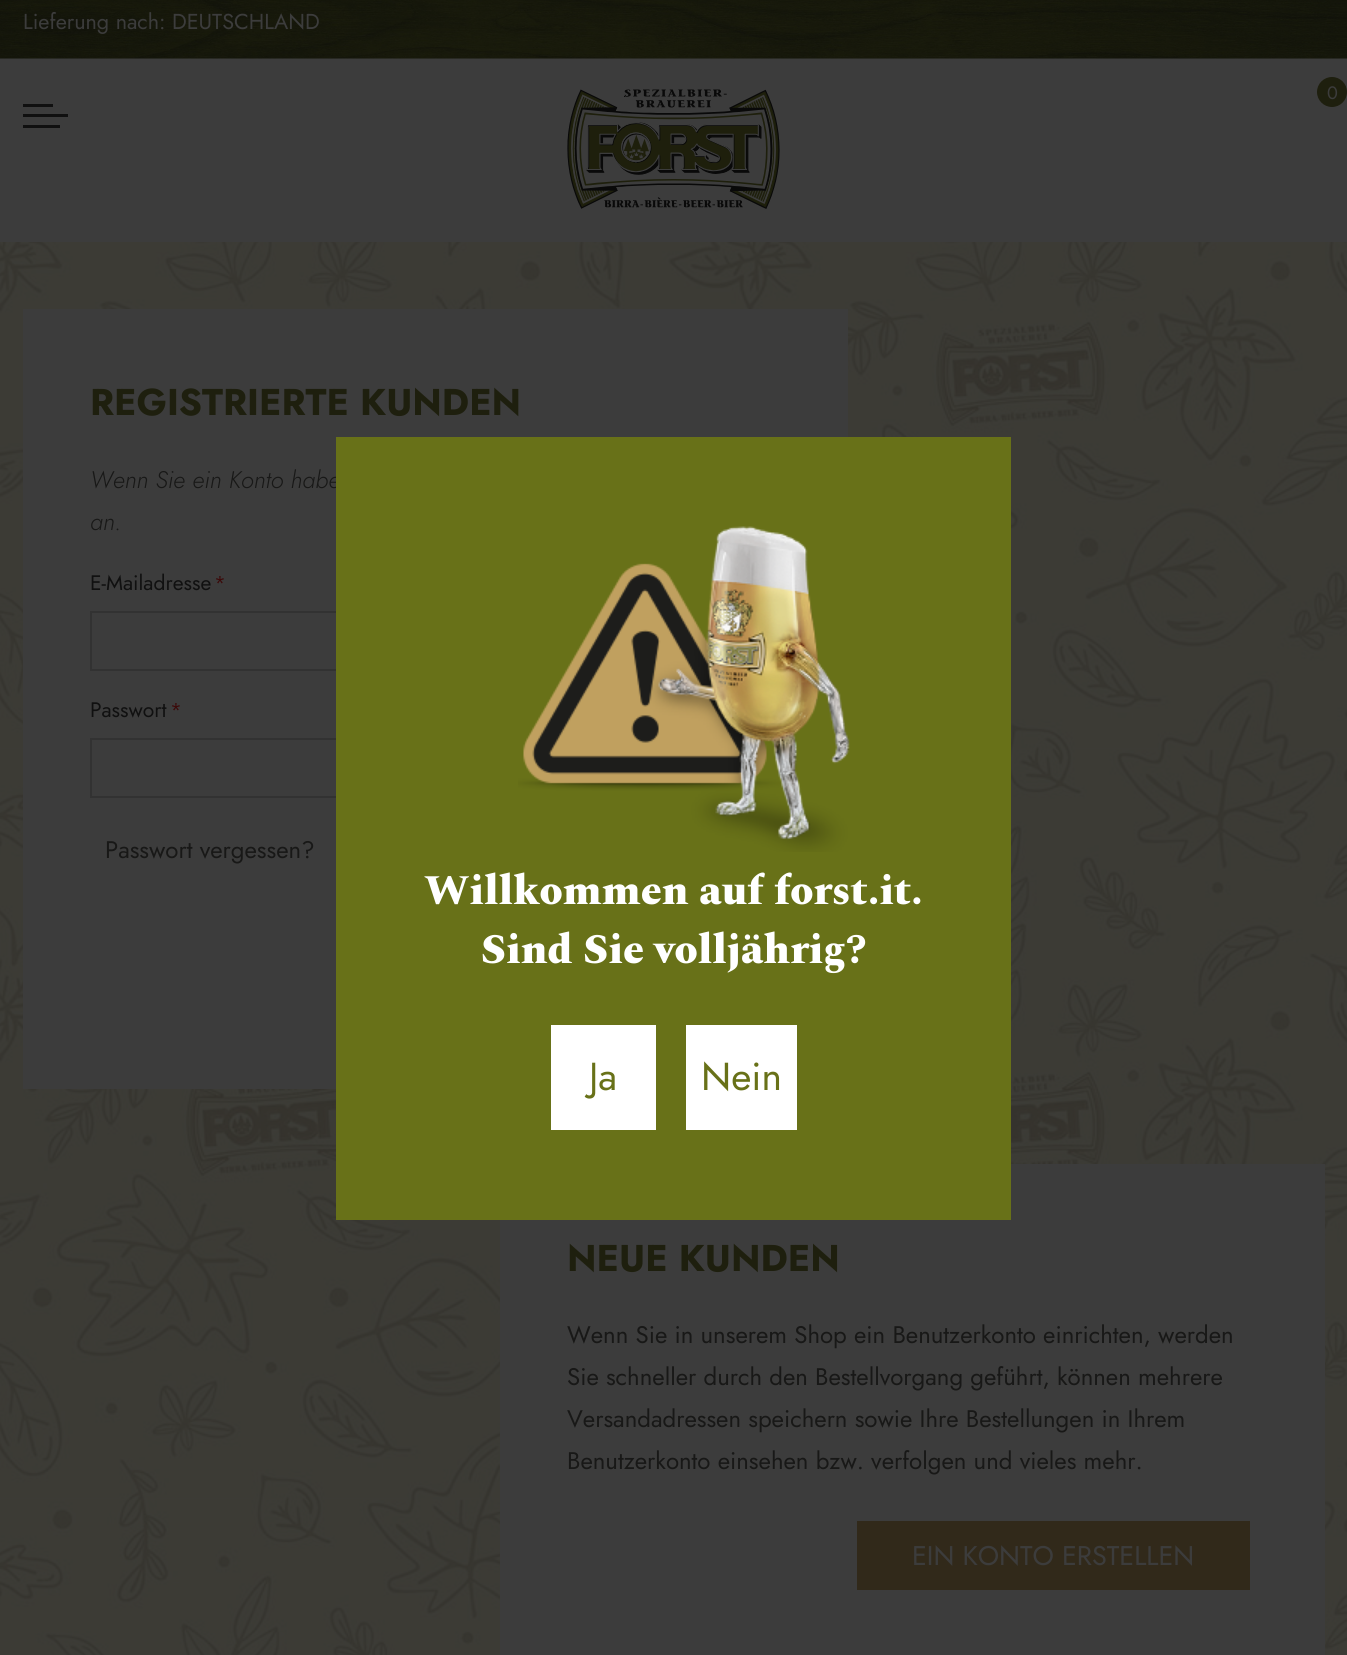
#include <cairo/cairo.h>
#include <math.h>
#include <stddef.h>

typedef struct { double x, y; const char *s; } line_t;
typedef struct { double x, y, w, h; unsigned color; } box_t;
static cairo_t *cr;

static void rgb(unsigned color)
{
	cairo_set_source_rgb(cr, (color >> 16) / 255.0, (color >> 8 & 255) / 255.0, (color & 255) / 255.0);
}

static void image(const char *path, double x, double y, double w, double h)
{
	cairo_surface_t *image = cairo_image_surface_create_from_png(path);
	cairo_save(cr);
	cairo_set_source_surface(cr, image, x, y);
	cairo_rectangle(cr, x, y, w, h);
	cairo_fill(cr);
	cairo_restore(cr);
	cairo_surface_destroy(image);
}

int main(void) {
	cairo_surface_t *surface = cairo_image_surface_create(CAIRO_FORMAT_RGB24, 1347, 1655);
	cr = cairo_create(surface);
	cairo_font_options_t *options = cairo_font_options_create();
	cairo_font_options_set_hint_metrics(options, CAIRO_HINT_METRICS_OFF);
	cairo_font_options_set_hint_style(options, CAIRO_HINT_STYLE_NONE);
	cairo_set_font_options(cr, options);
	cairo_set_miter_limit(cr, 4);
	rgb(0xffffff);
	cairo_paint(cr);
	image("img/1.png", 0, 242, 1347, 1413);
	rgb(0x3c3c3c);
	cairo_rectangle(cr, 0, 59, 1347, 183);
	cairo_fill(cr);
	rgb(0x3a3a3a);
	cairo_rectangle(cr, 0, 58, 1347, 1);
	cairo_fill(cr);
	image("img/2.png", 0, 0, 1347, 59);
	{
		static const box_t items[] = {
			{23, 104, 30, 3, 0x101010},
			{23, 114, 45, 3, 0x101010},
			{23, 125, 37, 3, 0x101010},
		};
		for (size_t i = 0; i < sizeof items / sizeof *items; i++) {
			rgb(items[i].color);
			cairo_rectangle(cr, items[i].x, items[i].y, items[i].w, items[i].h);
			cairo_fill(cr);
		}
	}
	image("img/3.png", 567, 89, 213, 120);
	rgb(0x1e1f0e);
	cairo_arc(cr, 1332, 92, 15, 0, 2 * M_PI);
	cairo_fill(cr);
	rgb(0x3c3c3c);
	cairo_rectangle(cr, 23, 309, 825, 780);
	cairo_fill(cr);
	cairo_rectangle(cr, 91, 612, 688, 58);
	rgb(0x323232);
	cairo_stroke(cr);
	cairo_rectangle(cr, 91, 739, 688, 58);
	cairo_stroke(cr);
	rgb(0x3c3c3c);
	cairo_rectangle(cr, 500, 1164, 825, 491);
	cairo_fill(cr);
	rgb(0x31291a);
	cairo_rectangle(cr, 857, 1521, 393, 69);
	cairo_fill(cr);
	cairo_select_font_face(cr, "Jost", CAIRO_FONT_SLANT_NORMAL, CAIRO_FONT_WEIGHT_NORMAL);
	cairo_set_font_size(cr, 21.6);
	rgb(0x3c3c3c);
	cairo_move_to(cr, 23, 29);
	cairo_show_text(cr, "Lieferung nach: DEUTSCHLAND");
	cairo_set_font_size(cr, 18);
	cairo_move_to(cr, 1327, 99);
	cairo_show_text(cr, "0");
	cairo_select_font_face(cr, "Jost", CAIRO_FONT_SLANT_NORMAL, CAIRO_FONT_WEIGHT_BOLD);
	cairo_set_font_size(cr, 37.25);
	rgb(0x1e1f0e);
	cairo_move_to(cr, 90, 415);
	cairo_show_text(cr, "REGISTRIERTE KUNDEN");
	cairo_select_font_face(cr, "Jost Light", CAIRO_FONT_SLANT_ITALIC, CAIRO_FONT_WEIGHT_NORMAL);
	cairo_set_font_size(cr, 24);
	rgb(0x181817);
	cairo_move_to(cr, 90, 488);
	cairo_show_text(cr, "Wenn Sie ein Konto habe");
	cairo_move_to(cr, 90, 530);
	cairo_show_text(cr, "an.");
	cairo_select_font_face(cr, "Jost", CAIRO_FONT_SLANT_NORMAL, CAIRO_FONT_WEIGHT_NORMAL);
	cairo_set_font_size(cr, 21);
	rgb(0x101010);
	cairo_move_to(cr, 90, 590);
	cairo_show_text(cr, "E-Mailadresse");
	cairo_set_font_size(cr, 20);
	rgb(0x3c0909);
	cairo_move_to(cr, 214, 590);
	cairo_show_text(cr, "*");
	cairo_set_font_size(cr, 21);
	rgb(0x101010);
	cairo_move_to(cr, 90, 717);
	cairo_show_text(cr, "Passwort");
	cairo_set_font_size(cr, 20);
	rgb(0x3c0909);
	cairo_move_to(cr, 170, 717);
	cairo_show_text(cr, "*");
	cairo_set_font_size(cr, 24);
	rgb(0x181817);
	cairo_move_to(cr, 105, 858);
	cairo_show_text(cr, "Passwort vergessen?");
	cairo_select_font_face(cr, "Jost", CAIRO_FONT_SLANT_NORMAL, CAIRO_FONT_WEIGHT_BOLD);
	cairo_set_font_size(cr, 37.25);
	rgb(0x1e1f0e);
	cairo_move_to(cr, 567, 1271);
	cairo_show_text(cr, "NEUE KUNDEN");
	cairo_select_font_face(cr, "Jost", CAIRO_FONT_SLANT_NORMAL, CAIRO_FONT_WEIGHT_NORMAL);
	cairo_set_font_size(cr, 24);
	rgb(0x181817);
	{
		static const line_t items[] = {
			{567, 1343, "Wenn Sie in unserem Shop ein Benutzerkonto einrichten, werden"},
			{567, 1385, "Sie schneller durch den Bestellvorgang geführt, können mehrere"},
			{567, 1427, "Versandadressen speichern sowie Ihre Bestellungen in Ihrem"},
			{567, 1469, "Benutzerkonto einsehen bzw. verfolgen und vieles mehr."},
		};
		for (size_t i = 0; i < sizeof items / sizeof *items; i++) {
			cairo_move_to(cr, items[i].x, items[i].y);
			cairo_show_text(cr, items[i].s);
		}
	}
	cairo_set_font_size(cr, 27);
	rgb(0x3c3c3c);
	cairo_move_to(cr, 912, 1565);
	cairo_show_text(cr, "EIN KONTO ERSTELLEN");
	rgb(0x687118);
	cairo_rectangle(cr, 336, 437, 675, 783);
	cairo_fill(cr);
	image("img/4.png", 518, 526, 332, 326);
	cairo_select_font_face(cr, "Spectral ExtraBold", CAIRO_FONT_SLANT_NORMAL, CAIRO_FONT_WEIGHT_NORMAL);
	cairo_set_font_size(cr, 42);
	rgb(0xffffff);
	cairo_move_to(cr, 424, 904);
	cairo_show_text(cr, "Willkommen auf forst.it.");
	cairo_move_to(cr, 481, 963);
	cairo_show_text(cr, "Sind Sie volljährig?");
	cairo_rectangle(cr, 551, 1025, 105, 105);
	cairo_fill(cr);
	cairo_select_font_face(cr, "Jost", CAIRO_FONT_SLANT_NORMAL, CAIRO_FONT_WEIGHT_NORMAL);
	cairo_set_font_size(cr, 39);
	rgb(0x687118);
	cairo_move_to(cr, 589, 1090);
	cairo_show_text(cr, "Ja");
	rgb(0xffffff);
	cairo_rectangle(cr, 686, 1025, 111, 105);
	cairo_fill(cr);
	rgb(0x687118);
	cairo_move_to(cr, 701, 1090);
	cairo_show_text(cr, "Nein");
	cairo_surface_write_to_png(surface, "page.png");
	cairo_font_options_destroy(options);
	cairo_destroy(cr);
	cairo_surface_destroy(surface);
	return 0;
}
